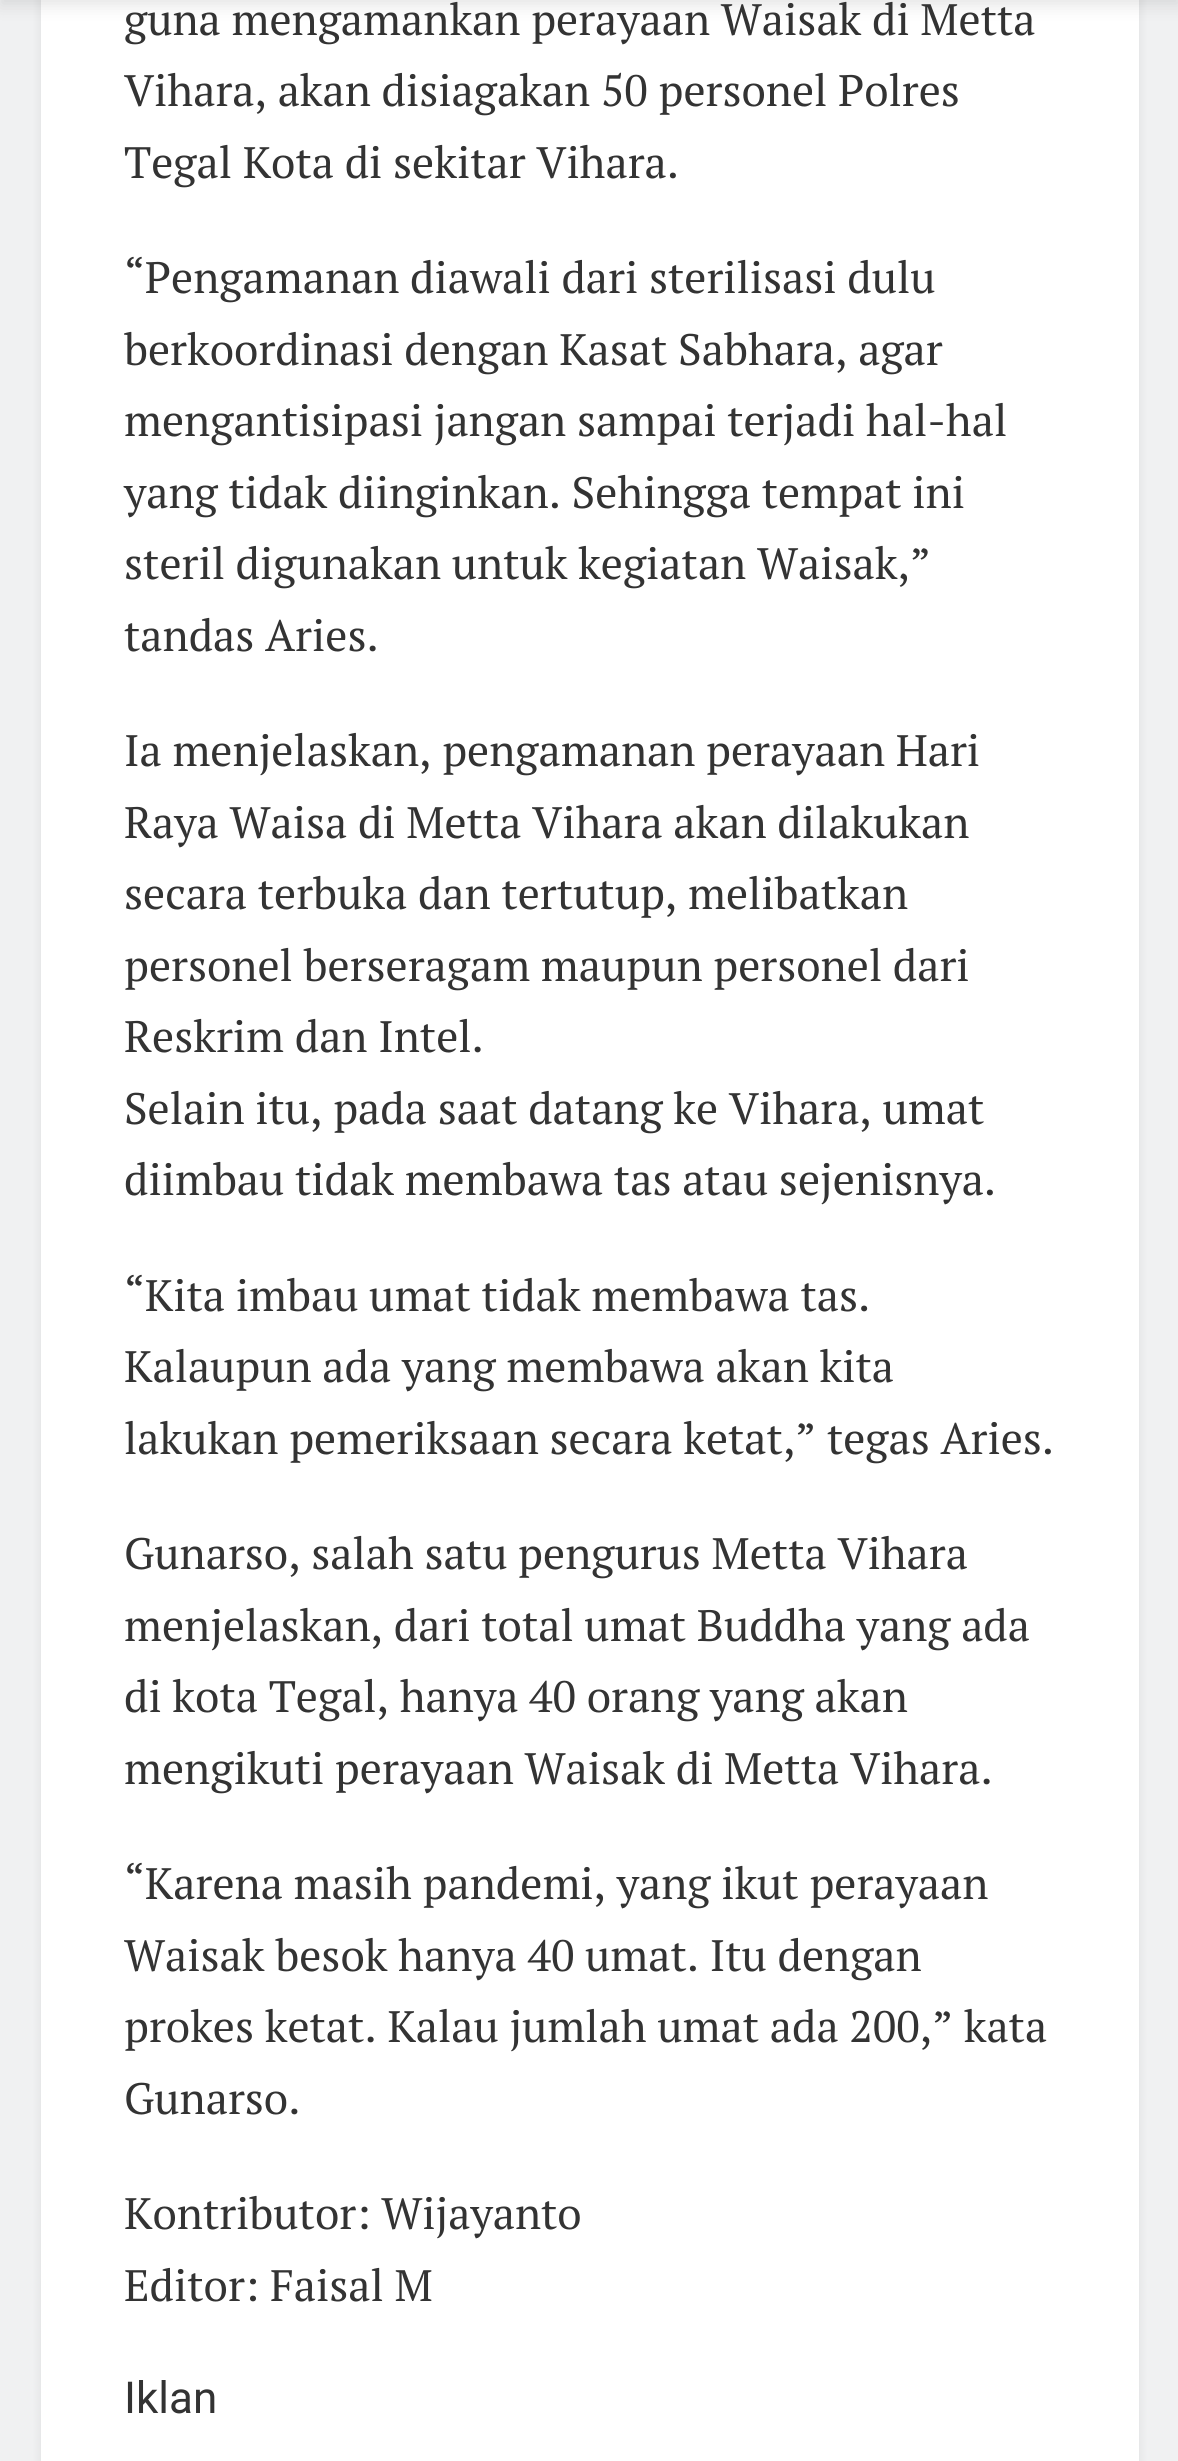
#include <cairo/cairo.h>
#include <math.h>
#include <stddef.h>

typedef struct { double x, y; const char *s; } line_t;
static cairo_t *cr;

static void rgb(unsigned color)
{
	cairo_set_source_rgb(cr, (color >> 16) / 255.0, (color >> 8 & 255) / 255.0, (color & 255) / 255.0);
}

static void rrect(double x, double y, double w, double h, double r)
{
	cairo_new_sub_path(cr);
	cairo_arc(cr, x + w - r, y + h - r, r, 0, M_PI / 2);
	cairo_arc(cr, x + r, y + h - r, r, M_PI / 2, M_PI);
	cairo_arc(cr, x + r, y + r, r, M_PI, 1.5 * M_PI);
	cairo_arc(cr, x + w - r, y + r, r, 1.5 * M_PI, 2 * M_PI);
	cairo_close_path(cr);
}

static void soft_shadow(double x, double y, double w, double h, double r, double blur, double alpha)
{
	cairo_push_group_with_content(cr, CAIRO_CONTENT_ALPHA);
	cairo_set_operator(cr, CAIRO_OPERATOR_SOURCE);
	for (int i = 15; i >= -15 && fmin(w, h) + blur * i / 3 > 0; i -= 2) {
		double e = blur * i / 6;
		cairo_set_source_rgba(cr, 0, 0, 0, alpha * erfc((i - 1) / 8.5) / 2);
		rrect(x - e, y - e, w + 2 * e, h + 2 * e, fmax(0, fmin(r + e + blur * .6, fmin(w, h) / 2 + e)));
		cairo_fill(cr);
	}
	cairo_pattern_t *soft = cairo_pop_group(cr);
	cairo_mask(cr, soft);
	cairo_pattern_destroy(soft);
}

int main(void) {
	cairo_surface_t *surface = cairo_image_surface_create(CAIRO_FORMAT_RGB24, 1178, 2461);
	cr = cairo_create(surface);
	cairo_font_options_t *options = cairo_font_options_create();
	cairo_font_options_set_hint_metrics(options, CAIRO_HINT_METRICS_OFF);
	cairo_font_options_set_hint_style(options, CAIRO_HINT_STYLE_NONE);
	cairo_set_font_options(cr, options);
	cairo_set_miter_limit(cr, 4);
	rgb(0xf0f1f2);
	cairo_paint(cr);
	rgb(0x000000);
	soft_shadow(41, -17, 1098, 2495, 0, 5.5, 0.08);
	rgb(0xffffff);
	cairo_rectangle(cr, 41, 0, 1098, 2461);
	cairo_fill(cr);
	rgb(0x000000);
	soft_shadow(0, -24, 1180, 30, 0, 8, 0.1);
	cairo_select_font_face(cr, "PT Serif", CAIRO_FONT_SLANT_NORMAL, CAIRO_FONT_WEIGHT_NORMAL);
	cairo_set_font_size(cr, 44);
	rgb(0x333333);
	{
		static const line_t items[] = {
			{124, 35, "guna mengamankan perayaan Waisak di Metta"},
			{124, 106, "Vihara, akan disiagakan 50 personel Polres"},
			{124, 178, "Tegal Kota di sekitar Vihara."},
			{124, 293, "“Pengamanan diawali dari sterilisasi dulu"},
			{124, 365, "berkoordinasi dengan Kasat Sabhara, agar"},
			{124, 436, "mengantisipasi jangan sampai terjadi hal-hal"},
			{124, 508, "yang tidak diinginkan. Sehingga tempat ini"},
			{124, 579, "steril digunakan untuk kegiatan Waisak,”"},
			{124, 651, "tandas Aries."},
			{124, 766, "Ia menjelaskan, pengamanan perayaan Hari"},
			{124, 838, "Raya Waisa di Metta Vihara akan dilakukan"},
			{124, 909, "secara terbuka dan tertutup, melibatkan"},
			{124, 981, "personel berseragam maupun personel dari"},
			{124, 1052, "Reskrim dan Intel."},
			{124, 1124, "Selain itu, pada saat datang ke Vihara, umat"},
			{124, 1195, "diimbau tidak membawa tas atau sejenisnya."},
			{124, 1311, "“Kita imbau umat tidak membawa tas."},
			{124, 1382, "Kalaupun ada yang membawa akan kita"},
			{124, 1454, "lakukan pemeriksaan secara ketat,” tegas Aries."},
			{124, 1569, "Gunarso, salah satu pengurus Metta Vihara"},
			{124, 1641, "menjelaskan, dari total umat Buddha yang ada"},
			{124, 1712, "di kota Tegal, hanya 40 orang yang akan"},
			{124, 1784, "mengikuti perayaan Waisak di Metta Vihara."},
			{124, 1899, "“Karena masih pandemi, yang ikut perayaan"},
			{124, 1971, "Waisak besok hanya 40 umat. Itu dengan"},
			{124, 2042, "prokes ketat. Kalau jumlah umat ada 200,” kata"},
			{124, 2114, "Gunarso."},
			{124, 2229, "Kontributor: Wijayanto"},
			{124, 2301, "Editor: Faisal M"},
		};
		for (size_t i = 0; i < sizeof items / sizeof *items; i++) {
			cairo_move_to(cr, items[i].x, items[i].y);
			cairo_show_text(cr, items[i].s);
		}
	}
	cairo_select_font_face(cr, "Roboto", CAIRO_FONT_SLANT_NORMAL, CAIRO_FONT_WEIGHT_NORMAL);
	cairo_move_to(cr, 124, 2413);
	cairo_show_text(cr, "Iklan");
	cairo_surface_write_to_png(surface, "page.png");
	cairo_font_options_destroy(options);
	cairo_destroy(cr);
	cairo_surface_destroy(surface);
	return 0;
}
